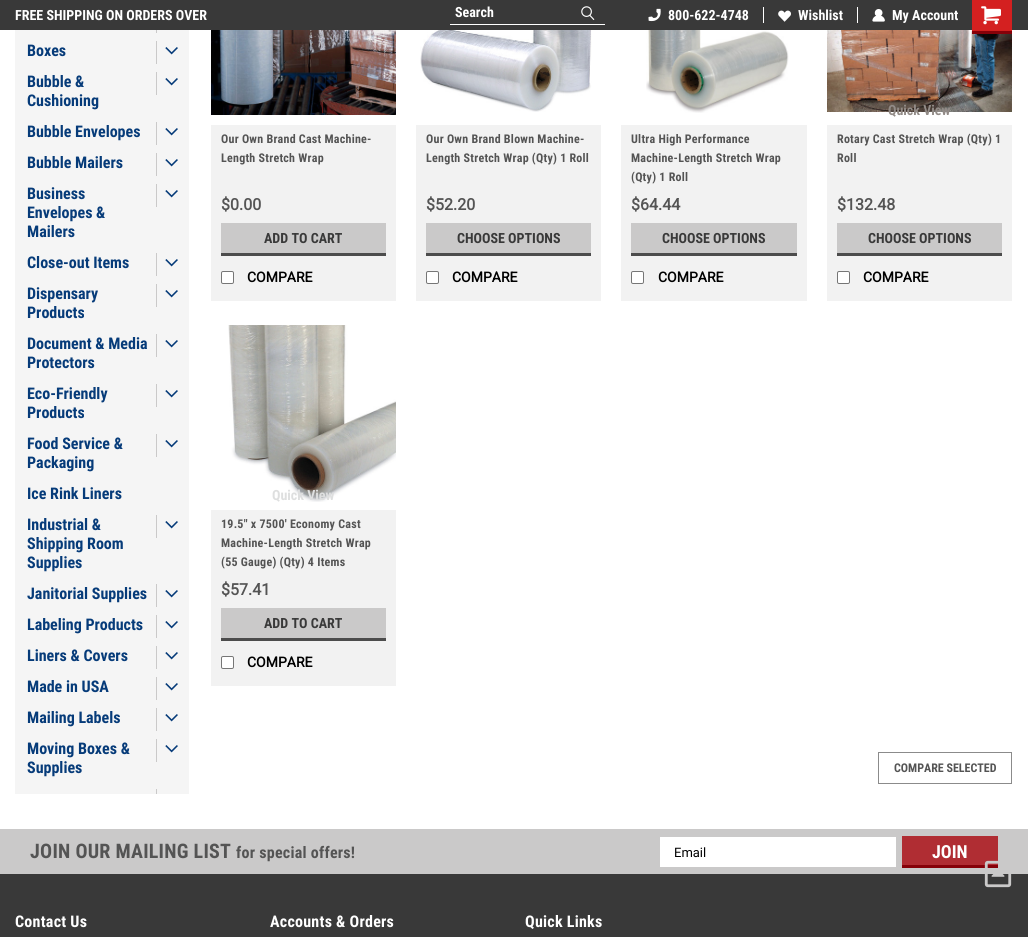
#include <cairo/cairo.h>
#include <math.h>
#include <stddef.h>

typedef struct { double x, y; const char *s; } line_t;
typedef struct { double x, y, w, h; unsigned color; } box_t;
static cairo_t *cr;

static void rgb(unsigned color)
{
	cairo_set_source_rgb(cr, (color >> 16) / 255.0, (color >> 8 & 255) / 255.0, (color & 255) / 255.0);
}

static void tracked(double x, double y, const char *s, double letter, double word)
{
	cairo_move_to(cr, x, y);
	while (*s) {
		char ch[5] = {0};
		int n = 0;
		do ch[n++] = *s++; while ((*s & 0xC0) == 0x80);
		cairo_show_text(cr, ch);
		cairo_rel_move_to(cr, letter + word * (*ch == ' '), 0);
	}
}

static void rrect(double x, double y, double w, double h, double r)
{
	cairo_new_sub_path(cr);
	cairo_arc(cr, x + w - r, y + h - r, r, 0, M_PI / 2);
	cairo_arc(cr, x + r, y + h - r, r, M_PI / 2, M_PI);
	cairo_arc(cr, x + r, y + r, r, M_PI, 1.5 * M_PI);
	cairo_arc(cr, x + w - r, y + r, r, 1.5 * M_PI, 2 * M_PI);
	cairo_close_path(cr);
}

static void image(const char *path, double x, double y, double w, double h)
{
	cairo_surface_t *image = cairo_image_surface_create_from_png(path);
	cairo_save(cr);
	cairo_set_source_surface(cr, image, x, y);
	cairo_rectangle(cr, x, y, w, h);
	cairo_fill(cr);
	cairo_restore(cr);
	cairo_surface_destroy(image);
}

int main(void) {
	cairo_surface_t *surface = cairo_image_surface_create(CAIRO_FORMAT_RGB24, 1028, 937);
	cr = cairo_create(surface);
	cairo_font_options_t *options = cairo_font_options_create();
	cairo_font_options_set_hint_metrics(options, CAIRO_HINT_METRICS_OFF);
	cairo_font_options_set_hint_style(options, CAIRO_HINT_STYLE_NONE);
	cairo_set_font_options(cr, options);
	cairo_set_miter_limit(cr, 4);
	rgb(0xffffff);
	cairo_paint(cr);
	rgb(0x393939);
	cairo_rectangle(cr, 0, 0, 1028, 30);
	cairo_fill(cr);
	rgb(0xffffff);
	cairo_rectangle(cr, 450, 24, 155, 1);
	cairo_fill(cr);
	image("img/1.png", 581, 6, 14, 14);
	cairo_rectangle(cr, 763, 7, 1, 16);
	cairo_fill(cr);
	image("img/2.png", 648, 8, 13, 14);
	cairo_rectangle(cr, 857, 7, 1, 16);
	cairo_fill(cr);
	image("img/3.png", 778, 10, 13, 12);
	image("img/4.png", 872, 9, 13, 13);
	image("img/10.png", 827, 30, 185, 82);
	rgb(0xd42020);
	cairo_rectangle(cr, 972, 0, 40, 31);
	cairo_fill(cr);
	rgb(0x860109);
	cairo_rectangle(cr, 972, 31, 40, 3);
	cairo_fill(cr);
	image("img/5.png", 981, 6, 20, 19);
	{
		static const box_t items[] = {
			{15, 30, 174, 764, 0xf5f5f5},
			{156, 30, 1, 3, 0xcac9c9},
			{156, 41, 1, 23, 0xcac9c9},
		};
		for (size_t i = 0; i < sizeof items / sizeof *items; i++) {
			rgb(items[i].color);
			cairo_rectangle(cr, items[i].x, items[i].y, items[i].w, items[i].h);
			cairo_fill(cr);
		}
	}
	image("img/6.png", 165, 47, 13, 8);
	cairo_rectangle(cr, 156, 72, 1, 23);
	cairo_fill(cr);
	image("img/6.png", 165, 78, 13, 8);
	cairo_rectangle(cr, 156, 122, 1, 23);
	cairo_fill(cr);
	image("img/6.png", 165, 128, 13, 8);
	cairo_rectangle(cr, 156, 153, 1, 23);
	cairo_fill(cr);
	image("img/6.png", 165, 159, 13, 8);
	cairo_rectangle(cr, 156, 184, 1, 23);
	cairo_fill(cr);
	image("img/6.png", 165, 190, 13, 8);
	cairo_rectangle(cr, 156, 253, 1, 23);
	cairo_fill(cr);
	image("img/6.png", 165, 259, 13, 8);
	cairo_rectangle(cr, 156, 284, 1, 23);
	cairo_fill(cr);
	image("img/6.png", 165, 290, 13, 8);
	cairo_rectangle(cr, 156, 334, 1, 23);
	cairo_fill(cr);
	image("img/6.png", 165, 340, 13, 8);
	cairo_rectangle(cr, 156, 384, 1, 23);
	cairo_fill(cr);
	image("img/6.png", 165, 390, 13, 8);
	cairo_rectangle(cr, 156, 434, 1, 23);
	cairo_fill(cr);
	image("img/6.png", 165, 440, 13, 8);
	cairo_rectangle(cr, 156, 515, 1, 23);
	cairo_fill(cr);
	image("img/6.png", 165, 521, 13, 8);
	cairo_rectangle(cr, 156, 584, 1, 23);
	cairo_fill(cr);
	image("img/6.png", 165, 590, 13, 8);
	cairo_rectangle(cr, 156, 615, 1, 23);
	cairo_fill(cr);
	image("img/6.png", 165, 621, 13, 8);
	cairo_rectangle(cr, 156, 646, 1, 23);
	cairo_fill(cr);
	image("img/6.png", 165, 652, 13, 8);
	cairo_rectangle(cr, 156, 677, 1, 23);
	cairo_fill(cr);
	image("img/6.png", 165, 683, 13, 8);
	cairo_rectangle(cr, 156, 708, 1, 23);
	cairo_fill(cr);
	image("img/6.png", 165, 714, 13, 8);
	cairo_rectangle(cr, 156, 739, 1, 23);
	cairo_fill(cr);
	image("img/6.png", 165, 745, 13, 8);
	cairo_rectangle(cr, 156, 789, 1, 5);
	cairo_fill(cr);
	rgb(0xf2f2f2);
	cairo_rectangle(cr, 211, 125, 185, 176);
	cairo_fill(cr);
	image("img/7.png", 211, 30, 185, 85);
	rgb(0xcac9c9);
	cairo_rectangle(cr, 221, 223, 165, 30);
	cairo_fill(cr);
	rgb(0x4c4c4c);
	cairo_rectangle(cr, 221, 253, 165, 3);
	cairo_fill(cr);
	rgb(0xffffff);
	rrect(221.5, 271.5, 12, 12, 1.5);
	cairo_fill_preserve(cr);
	rgb(0x767676);
	cairo_set_line_width(cr, 1);
	cairo_stroke(cr);
	rgb(0xf2f2f2);
	cairo_rectangle(cr, 416, 125, 185, 176);
	cairo_fill(cr);
	image("img/8.png", 420, 30, 172, 82);
	rgb(0xcac9c9);
	cairo_rectangle(cr, 426, 223, 165, 30);
	cairo_fill(cr);
	rgb(0x4c4c4c);
	cairo_rectangle(cr, 426, 253, 165, 3);
	cairo_fill(cr);
	rgb(0xffffff);
	rrect(426.5, 271.5, 12, 12, 1.5);
	cairo_fill_preserve(cr);
	rgb(0x767676);
	cairo_stroke(cr);
	rgb(0xf2f2f2);
	cairo_rectangle(cr, 621, 125, 186, 176);
	cairo_fill(cr);
	image("img/9.png", 646, 30, 143, 83);
	rgb(0xcac9c9);
	cairo_rectangle(cr, 631, 223, 166, 30);
	cairo_fill(cr);
	rgb(0x4c4c4c);
	cairo_rectangle(cr, 631, 253, 166, 3);
	cairo_fill(cr);
	rgb(0xffffff);
	rrect(631.5, 271.5, 12, 12, 1.5);
	cairo_fill_preserve(cr);
	rgb(0x767676);
	cairo_stroke(cr);
	{
		static const box_t items[] = {
			{827, 125, 185, 176, 0xf2f2f2},
			{837, 223, 165, 30, 0xcac9c9},
			{837, 253, 165, 3, 0x4c4c4c},
		};
		for (size_t i = 0; i < sizeof items / sizeof *items; i++) {
			rgb(items[i].color);
			cairo_rectangle(cr, items[i].x, items[i].y, items[i].w, items[i].h);
			cairo_fill(cr);
		}
	}
	rgb(0xffffff);
	rrect(837.5, 271.5, 12, 12, 1.5);
	cairo_fill_preserve(cr);
	rgb(0x767676);
	cairo_stroke(cr);
	rgb(0xf2f2f2);
	cairo_rectangle(cr, 211, 510, 185, 176);
	cairo_fill(cr);
	image("img/11.png", 228, 325, 168, 177);
	rgb(0xcac9c9);
	cairo_rectangle(cr, 221, 608, 165, 30);
	cairo_fill(cr);
	rgb(0x4c4c4c);
	cairo_rectangle(cr, 221, 638, 165, 3);
	cairo_fill(cr);
	rgb(0xffffff);
	rrect(221.5, 656.5, 12, 12, 1.5);
	cairo_fill_preserve(cr);
	rgb(0x767676);
	cairo_stroke(cr);
	cairo_rectangle(cr, 878.5, 752.5, 133, 31);
	rgb(0x8b8b8b);
	cairo_stroke(cr);
	{
		static const box_t items[] = {
			{0, 874, 1028, 63, 0x393939},
			{0, 829, 1028, 45, 0xcac9c9},
			{660, 837, 236, 30, 0xffffff},
			{902, 836, 96, 29, 0xb02d33},
			{902, 865, 96, 3, 0x860109},
		};
		for (size_t i = 0; i < sizeof items / sizeof *items; i++) {
			rgb(items[i].color);
			cairo_rectangle(cr, items[i].x, items[i].y, items[i].w, items[i].h);
			cairo_fill(cr);
		}
	}
	image("img/12.png", 984, 860, 28, 28);
	cairo_select_font_face(cr, "Roboto Condensed", CAIRO_FONT_SLANT_NORMAL, CAIRO_FONT_WEIGHT_BOLD);
	cairo_set_font_size(cr, 14);
	rgb(0xffffff);
	{
		static const line_t items[] = {
			{15, 20, "FREE SHIPPING ON ORDERS OVER"},
			{455, 17, "Search"},
			{668, 20, "800-622-4748"},
			{798, 20, "Wishlist"},
			{892, 20, "My Account"},
		};
		for (size_t i = 0; i < sizeof items / sizeof *items; i++) {
			cairo_move_to(cr, items[i].x, items[i].y);
			cairo_show_text(cr, items[i].s);
		}
	}
	cairo_set_font_size(cr, 16);
	rgb(0x063b79);
	{
		static const line_t items[] = {
			{27, 56, "Boxes"},
			{27, 87, "Bubble &"},
			{27, 106, "Cushioning"},
			{27, 137, "Bubble Envelopes"},
			{27, 168, "Bubble Mailers"},
			{27, 199, "Business"},
			{27, 218, "Envelopes &"},
			{27, 237, "Mailers"},
			{27, 268, "Close-out Items"},
			{27, 299, "Dispensary"},
			{27, 318, "Products"},
			{27, 349, "Document & Media"},
			{27, 368, "Protectors"},
			{27, 399, "Eco-Friendly"},
			{27, 418, "Products"},
			{27, 449, "Food Service &"},
			{27, 468, "Packaging"},
			{27, 499, "Ice Rink Liners"},
			{27, 530, "Industrial &"},
			{27, 549, "Shipping Room"},
			{27, 568, "Supplies"},
			{27, 599, "Janitorial Supplies"},
			{27, 630, "Labeling Products"},
			{27, 661, "Liners & Covers"},
			{27, 692, "Made in USA"},
			{27, 723, "Mailing Labels"},
			{27, 754, "Moving Boxes &"},
			{27, 773, "Supplies"},
		};
		for (size_t i = 0; i < sizeof items / sizeof *items; i++) {
			cairo_move_to(cr, items[i].x, items[i].y);
			cairo_show_text(cr, items[i].s);
		}
	}
	cairo_set_font_size(cr, 12);
	rgb(0x545454);
	tracked(221, 143, "Our Own Brand Cast Machine-", 0.25, 0);
	tracked(221, 162, "Length Stretch Wrap", 0.25, 0);
	cairo_select_font_face(cr, "Roboto", CAIRO_FONT_SLANT_NORMAL, CAIRO_FONT_WEIGHT_BOLD);
	cairo_set_font_size(cr, 16);
	cairo_move_to(cr, 221, 210);
	cairo_show_text(cr, "$0.00");
	cairo_select_font_face(cr, "Roboto Condensed", CAIRO_FONT_SLANT_NORMAL, CAIRO_FONT_WEIGHT_BOLD);
	cairo_set_font_size(cr, 14);
	rgb(0x393939);
	cairo_move_to(cr, 264, 243);
	cairo_show_text(cr, "ADD TO CART");
	cairo_select_font_face(cr, "Roboto", CAIRO_FONT_SLANT_NORMAL, CAIRO_FONT_WEIGHT_BOLD);
	rgb(0x000000);
	cairo_move_to(cr, 247, 282);
	cairo_show_text(cr, "COMPARE");
	cairo_select_font_face(cr, "Roboto Condensed", CAIRO_FONT_SLANT_NORMAL, CAIRO_FONT_WEIGHT_BOLD);
	cairo_set_font_size(cr, 12);
	rgb(0x545454);
	tracked(426, 143, "Our Own Brand Blown Machine-", 0.25, 0);
	tracked(426, 162, "Length Stretch Wrap (Qty) 1 Roll", 0.25, 0);
	cairo_select_font_face(cr, "Roboto", CAIRO_FONT_SLANT_NORMAL, CAIRO_FONT_WEIGHT_BOLD);
	cairo_set_font_size(cr, 16);
	cairo_move_to(cr, 426, 210);
	cairo_show_text(cr, "$52.20");
	cairo_select_font_face(cr, "Roboto Condensed", CAIRO_FONT_SLANT_NORMAL, CAIRO_FONT_WEIGHT_BOLD);
	cairo_set_font_size(cr, 14);
	rgb(0x393939);
	cairo_move_to(cr, 457, 243);
	cairo_show_text(cr, "CHOOSE OPTIONS");
	cairo_select_font_face(cr, "Roboto", CAIRO_FONT_SLANT_NORMAL, CAIRO_FONT_WEIGHT_BOLD);
	rgb(0x000000);
	cairo_move_to(cr, 452, 282);
	cairo_show_text(cr, "COMPARE");
	cairo_select_font_face(cr, "Roboto Condensed", CAIRO_FONT_SLANT_NORMAL, CAIRO_FONT_WEIGHT_BOLD);
	cairo_set_font_size(cr, 12);
	rgb(0x545454);
	{
		static const line_t items[] = {
			{631, 143, "Ultra High Performance"},
			{631, 162, "Machine-Length Stretch Wrap"},
			{631, 181, "(Qty) 1 Roll"},
		};
		for (size_t i = 0; i < sizeof items / sizeof *items; i++) {
			tracked(items[i].x, items[i].y, items[i].s, 0.25, 0);
		}
	}
	cairo_select_font_face(cr, "Roboto", CAIRO_FONT_SLANT_NORMAL, CAIRO_FONT_WEIGHT_BOLD);
	cairo_set_font_size(cr, 16);
	cairo_move_to(cr, 631, 210);
	cairo_show_text(cr, "$64.44");
	cairo_select_font_face(cr, "Roboto Condensed", CAIRO_FONT_SLANT_NORMAL, CAIRO_FONT_WEIGHT_BOLD);
	cairo_set_font_size(cr, 14);
	rgb(0x393939);
	cairo_move_to(cr, 662, 243);
	cairo_show_text(cr, "CHOOSE OPTIONS");
	cairo_select_font_face(cr, "Roboto", CAIRO_FONT_SLANT_NORMAL, CAIRO_FONT_WEIGHT_BOLD);
	rgb(0x000000);
	cairo_move_to(cr, 658, 282);
	cairo_show_text(cr, "COMPARE");
	cairo_select_font_face(cr, "Roboto Condensed", CAIRO_FONT_SLANT_NORMAL, CAIRO_FONT_WEIGHT_BOLD);
	rgb(0x928b87);
	cairo_move_to(cr, 888, 115);
	cairo_show_text(cr, "Quick View");
	cairo_set_font_size(cr, 12);
	rgb(0x545454);
	tracked(837, 143, "Rotary Cast Stretch Wrap (Qty) 1", 0.25, 0);
	tracked(837, 162, "Roll", 0.25, 0);
	cairo_select_font_face(cr, "Roboto", CAIRO_FONT_SLANT_NORMAL, CAIRO_FONT_WEIGHT_BOLD);
	cairo_set_font_size(cr, 16);
	cairo_move_to(cr, 837, 210);
	cairo_show_text(cr, "$132.48");
	cairo_select_font_face(cr, "Roboto Condensed", CAIRO_FONT_SLANT_NORMAL, CAIRO_FONT_WEIGHT_BOLD);
	cairo_set_font_size(cr, 14);
	rgb(0x393939);
	cairo_move_to(cr, 868, 243);
	cairo_show_text(cr, "CHOOSE OPTIONS");
	cairo_select_font_face(cr, "Roboto", CAIRO_FONT_SLANT_NORMAL, CAIRO_FONT_WEIGHT_BOLD);
	rgb(0x000000);
	cairo_move_to(cr, 863, 282);
	cairo_show_text(cr, "COMPARE");
	cairo_select_font_face(cr, "Roboto Condensed", CAIRO_FONT_SLANT_NORMAL, CAIRO_FONT_WEIGHT_BOLD);
	rgb(0xdedfdf);
	cairo_move_to(cr, 272, 500);
	cairo_show_text(cr, "Quick View");
	cairo_set_font_size(cr, 12);
	rgb(0x545454);
	{
		static const line_t items[] = {
			{221, 528, "19.5\" x 7500' Economy Cast"},
			{221, 547, "Machine-Length Stretch Wrap"},
			{221, 566, "(55 Gauge) (Qty) 4 Items"},
		};
		for (size_t i = 0; i < sizeof items / sizeof *items; i++) {
			tracked(items[i].x, items[i].y, items[i].s, 0.25, 0);
		}
	}
	cairo_select_font_face(cr, "Roboto", CAIRO_FONT_SLANT_NORMAL, CAIRO_FONT_WEIGHT_BOLD);
	cairo_set_font_size(cr, 16);
	cairo_move_to(cr, 221, 595);
	cairo_show_text(cr, "$57.41");
	cairo_select_font_face(cr, "Roboto Condensed", CAIRO_FONT_SLANT_NORMAL, CAIRO_FONT_WEIGHT_BOLD);
	cairo_set_font_size(cr, 14);
	rgb(0x393939);
	cairo_move_to(cr, 264, 628);
	cairo_show_text(cr, "ADD TO CART");
	cairo_select_font_face(cr, "Roboto", CAIRO_FONT_SLANT_NORMAL, CAIRO_FONT_WEIGHT_BOLD);
	rgb(0x000000);
	cairo_move_to(cr, 247, 667);
	cairo_show_text(cr, "COMPARE");
	cairo_select_font_face(cr, "Roboto Condensed", CAIRO_FONT_SLANT_NORMAL, CAIRO_FONT_WEIGHT_BOLD);
	cairo_set_font_size(cr, 12);
	rgb(0x545454);
	cairo_move_to(cr, 894, 772);
	cairo_show_text(cr, "COMPARE SELECTED");
	cairo_set_font_size(cr, 20);
	tracked(30, 858, "JOIN OUR MAILING LIST", 0.25, 0);
	cairo_set_font_size(cr, 16);
	tracked(236, 858, "for special offers!", 0.25, 0);
	cairo_select_font_face(cr, "Roboto", CAIRO_FONT_SLANT_NORMAL, CAIRO_FONT_WEIGHT_NORMAL);
	cairo_set_font_size(cr, 13);
	rgb(0x000000);
	cairo_move_to(cr, 674, 857);
	cairo_show_text(cr, "Email");
	cairo_select_font_face(cr, "Roboto Condensed", CAIRO_FONT_SLANT_NORMAL, CAIRO_FONT_WEIGHT_BOLD);
	cairo_set_font_size(cr, 18);
	rgb(0xffffff);
	cairo_move_to(cr, 932, 858);
	cairo_show_text(cr, "JOIN");
	cairo_set_font_size(cr, 16);
	{
		static const line_t items[] = {
			{15, 927, "Contact Us"},
			{270, 927, "Accounts & Orders"},
			{525, 927, "Quick Links"},
		};
		for (size_t i = 0; i < sizeof items / sizeof *items; i++) {
			tracked(items[i].x, items[i].y, items[i].s, 0.25, 0);
		}
	}
	cairo_surface_write_to_png(surface, "page.png");
	cairo_font_options_destroy(options);
	cairo_destroy(cr);
	cairo_surface_destroy(surface);
	return 0;
}
